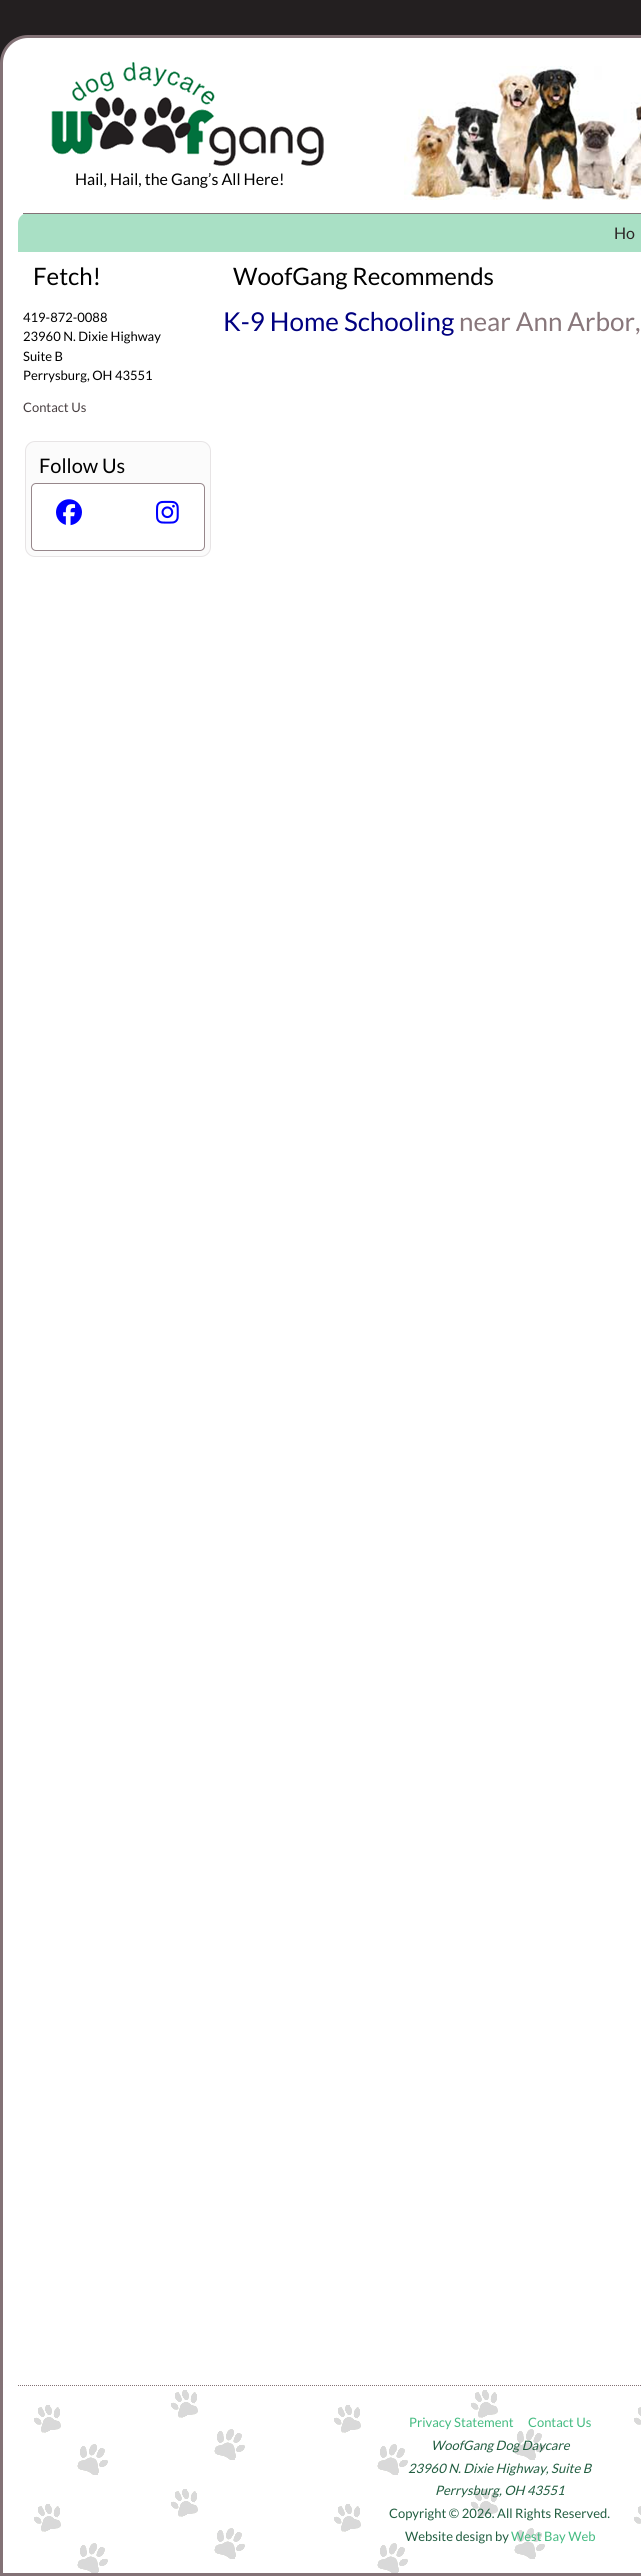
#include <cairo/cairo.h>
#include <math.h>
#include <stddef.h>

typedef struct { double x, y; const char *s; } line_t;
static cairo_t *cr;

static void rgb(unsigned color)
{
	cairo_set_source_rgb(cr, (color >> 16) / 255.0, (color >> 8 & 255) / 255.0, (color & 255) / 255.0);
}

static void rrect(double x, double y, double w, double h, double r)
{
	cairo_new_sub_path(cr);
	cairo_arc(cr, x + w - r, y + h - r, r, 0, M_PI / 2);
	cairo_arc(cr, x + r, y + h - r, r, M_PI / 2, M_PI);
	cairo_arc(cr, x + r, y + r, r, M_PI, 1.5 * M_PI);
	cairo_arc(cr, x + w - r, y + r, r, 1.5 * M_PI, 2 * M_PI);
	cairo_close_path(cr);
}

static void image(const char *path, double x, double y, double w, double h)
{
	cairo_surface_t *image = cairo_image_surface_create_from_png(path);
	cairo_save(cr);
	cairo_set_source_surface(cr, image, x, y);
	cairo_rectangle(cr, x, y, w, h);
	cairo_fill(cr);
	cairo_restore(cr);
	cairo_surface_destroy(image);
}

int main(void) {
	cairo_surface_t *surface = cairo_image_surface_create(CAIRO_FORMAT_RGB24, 641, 2576);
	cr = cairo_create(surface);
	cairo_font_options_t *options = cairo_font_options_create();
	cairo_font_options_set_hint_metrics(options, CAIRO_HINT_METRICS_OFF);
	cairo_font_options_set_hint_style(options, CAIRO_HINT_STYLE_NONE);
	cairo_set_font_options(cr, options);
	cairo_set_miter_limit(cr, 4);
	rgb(0x231f20);
	cairo_paint(cr);
	rgb(0xffffff);
	cairo_new_path(cr);
	cairo_move_to(cr, 28, 36.5);
	cairo_line_to(cr, 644, 36.5);
	cairo_curve_to(cr, 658.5, 36.5, 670.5, 48.5, 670.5, 63);
	cairo_line_to(cr, 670.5, 2574.5);
	cairo_line_to(cr, 1.5, 2574.5);
	cairo_line_to(cr, 1.5, 63);
	cairo_curve_to(cr, 1.5, 48.5, 13.5, 36.5, 28, 36.5);
	cairo_close_path(cr);
	cairo_fill_preserve(cr);
	rgb(0x837276);
	cairo_set_line_width(cr, 3);
	cairo_stroke(cr);
	image("img/1.png", 51, 61, 590, 139);
	rgb(0xa9e0c5);
	cairo_new_path(cr);
	cairo_move_to(cr, 28, 213);
	cairo_line_to(cr, 641, 213);
	cairo_curve_to(cr, 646.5, 213, 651, 217.5, 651, 223);
	cairo_line_to(cr, 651, 252);
	cairo_line_to(cr, 18, 252);
	cairo_line_to(cr, 18, 223);
	cairo_curve_to(cr, 18, 217.5, 22.5, 213, 28, 213);
	cairo_close_path(cr);
	cairo_fill(cr);
	rgb(0x837276);
	cairo_rectangle(cr, 23, 213, 618, 1);
	cairo_fill(cr);
	rgb(0xfbfbfb);
	rrect(25.5, 441.5, 185, 115, 9.5);
	cairo_fill_preserve(cr);
	rgb(0xe7e4e5);
	cairo_set_line_width(cr, 1);
	cairo_stroke(cr);
	rgb(0xffffff);
	rrect(31.5, 483.5, 173, 67, 4.5);
	cairo_fill_preserve(cr);
	rgb(0x97878b);
	cairo_stroke(cr);
	image("img/2.png", 56, 499, 26, 27);
	image("img/3.png", 156, 500, 23, 24);
	image("img/4.png", 34, 2390, 607, 183);
	cairo_new_path(cr);
	cairo_move_to(cr, 18, 2385.5);
	cairo_line_to(cr, 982, 2385.5);
	rgb(0x837276);
	cairo_set_dash(cr, (double[]){1, 1}, 2, 0);
	cairo_stroke(cr);
	cairo_select_font_face(cr, "Lato", CAIRO_FONT_SLANT_NORMAL, CAIRO_FONT_WEIGHT_NORMAL);
	cairo_set_font_size(cr, 16);
	rgb(0x000000);
	cairo_move_to(cr, 75, 185);
	cairo_show_text(cr, "Hail, Hail, the Gang’s All Here!");
	rgb(0x2c2627);
	cairo_move_to(cr, 614, 239);
	cairo_show_text(cr, "Ho");
	cairo_set_font_size(cr, 24);
	rgb(0x000000);
	cairo_move_to(cr, 33, 285);
	cairo_show_text(cr, "Fetch!");
	cairo_set_font_size(cr, 13);
	{
		static const line_t items[] = {
			{23, 322, "419-872-0088"},
			{23, 341, "23960 N. Dixie Highway"},
			{23, 361, "Suite B"},
			{23, 380, "Perrysburg, OH 43551"},
		};
		for (size_t i = 0; i < sizeof items / sizeof *items; i++) {
			cairo_move_to(cr, items[i].x, items[i].y);
			cairo_show_text(cr, items[i].s);
		}
	}
	rgb(0x473e40);
	cairo_move_to(cr, 23, 412);
	cairo_show_text(cr, "Contact Us");
	cairo_set_font_size(cr, 20);
	rgb(0x000000);
	cairo_move_to(cr, 39, 473);
	cairo_show_text(cr, "Follow Us");
	cairo_set_font_size(cr, 24);
	cairo_move_to(cr, 233, 285);
	cairo_show_text(cr, "WoofGang Recommends");
	cairo_set_font_size(cr, 26);
	rgb(0x000080);
	cairo_move_to(cr, 223, 331);
	cairo_show_text(cr, "K-9 Home Schooling");
	rgb(0x88777b);
	cairo_move_to(cr, 459, 331);
	cairo_show_text(cr, "near Ann Arbor,");
	cairo_set_font_size(cr, 13);
	rgb(0x44bb81);
	cairo_move_to(cr, 409, 2427);
	cairo_show_text(cr, "Privacy Statement");
	cairo_move_to(cr, 528, 2427);
	cairo_show_text(cr, "Contact Us");
	cairo_select_font_face(cr, "Lato", CAIRO_FONT_SLANT_ITALIC, CAIRO_FONT_WEIGHT_NORMAL);
	rgb(0x225e41);
	{
		static const line_t items[] = {
			{431, 2450, "WoofGang Dog Daycare"},
			{408, 2473, "23960 N. Dixie Highway, Suite B"},
			{435, 2495, "Perrysburg, OH 43551"},
		};
		for (size_t i = 0; i < sizeof items / sizeof *items; i++) {
			cairo_move_to(cr, items[i].x, items[i].y);
			cairo_show_text(cr, items[i].s);
		}
	}
	cairo_select_font_face(cr, "Lato", CAIRO_FONT_SLANT_NORMAL, CAIRO_FONT_WEIGHT_NORMAL);
	cairo_move_to(cr, 389, 2518);
	cairo_show_text(cr, "Copyright © 2026. All Rights Reserved.");
	cairo_move_to(cr, 405, 2541);
	cairo_show_text(cr, "Website design by");
	rgb(0x44bb81);
	cairo_move_to(cr, 511, 2541);
	cairo_show_text(cr, "West Bay Web");
	cairo_surface_write_to_png(surface, "page.png");
	cairo_font_options_destroy(options);
	cairo_destroy(cr);
	cairo_surface_destroy(surface);
	return 0;
}
